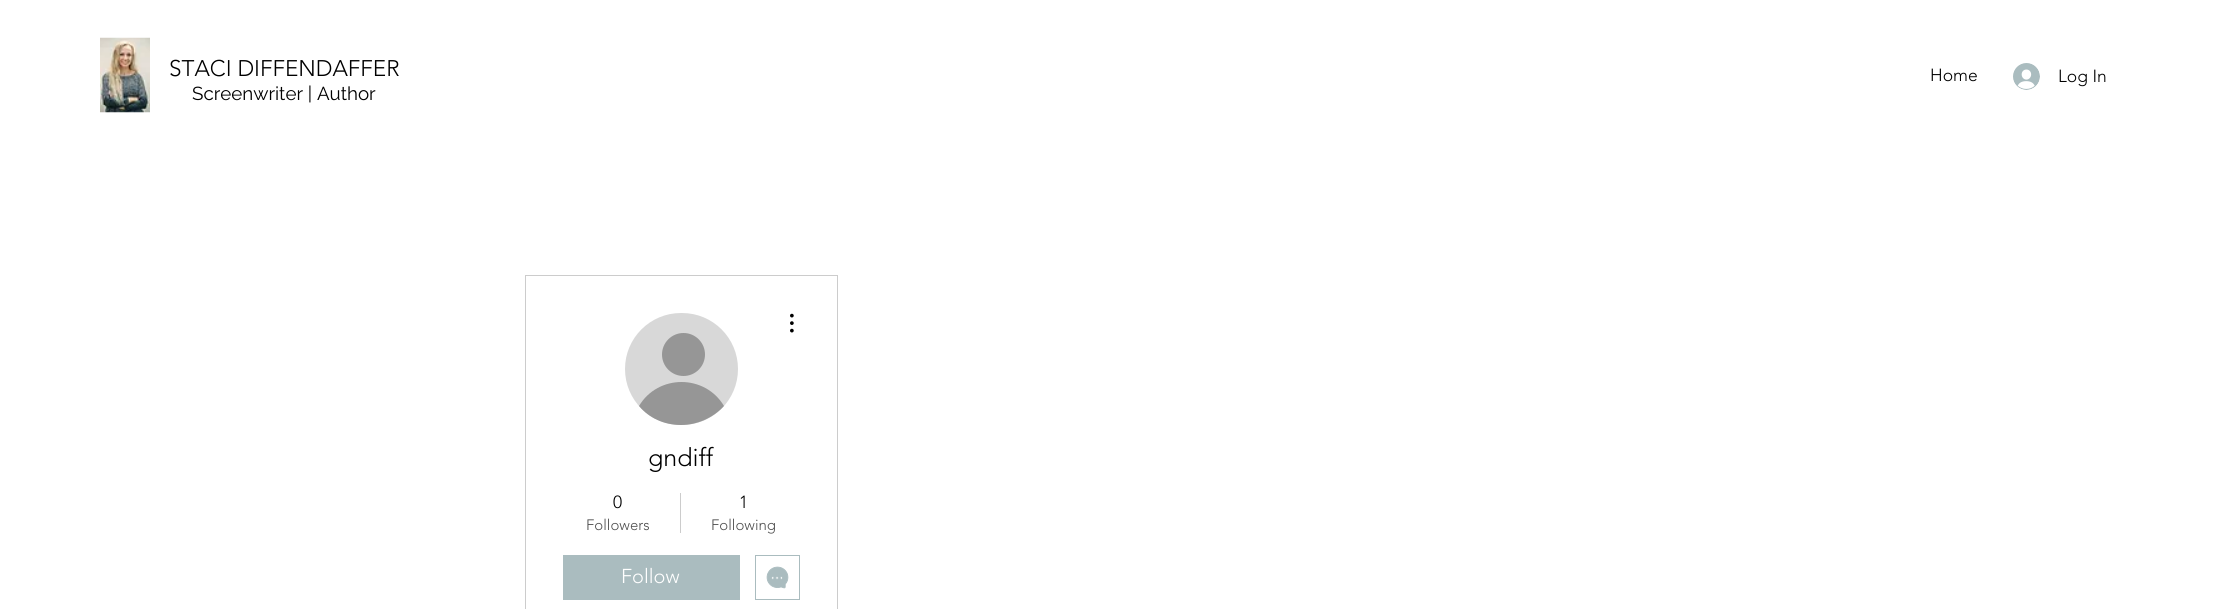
#include <cairo/cairo.h>
#include <math.h>
#include <stddef.h>

static cairo_t *cr;

static void rgb(unsigned color)
{
	cairo_set_source_rgb(cr, (color >> 16) / 255.0, (color >> 8 & 255) / 255.0, (color & 255) / 255.0);
}

static void rrect(double x, double y, double w, double h, double r)
{
	cairo_new_sub_path(cr);
	cairo_arc(cr, x + w - r, y + h - r, r, 0, M_PI / 2);
	cairo_arc(cr, x + r, y + h - r, r, M_PI / 2, M_PI);
	cairo_arc(cr, x + r, y + r, r, M_PI, 1.5 * M_PI);
	cairo_arc(cr, x + w - r, y + r, r, 1.5 * M_PI, 2 * M_PI);
	cairo_close_path(cr);
}

static void image(const char *path, double x, double y, double w, double h)
{
	cairo_surface_t *image = cairo_image_surface_create_from_png(path);
	cairo_save(cr);
	cairo_set_source_surface(cr, image, x, y);
	cairo_rectangle(cr, x, y, w, h);
	cairo_fill(cr);
	cairo_restore(cr);
	cairo_surface_destroy(image);
}

int main(void) {
	cairo_surface_t *surface = cairo_image_surface_create(CAIRO_FORMAT_RGB24, 2223, 609);
	cr = cairo_create(surface);
	cairo_font_options_t *options = cairo_font_options_create();
	cairo_font_options_set_hint_metrics(options, CAIRO_HINT_METRICS_OFF);
	cairo_font_options_set_hint_style(options, CAIRO_HINT_STYLE_NONE);
	cairo_set_font_options(cr, options);
	cairo_set_miter_limit(cr, 4);
	rgb(0xffffff);
	cairo_paint(cr);
	image("img/1.png", 100, 37, 50, 76);
	image("img/2.png", 2013, 63, 27, 27);
	cairo_rectangle(cr, 525.5, 275.5, 312, 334);
	rgb(0xcccccc);
	cairo_set_line_width(cr, 1);
	cairo_stroke(cr);
	rgb(0xd8d8d8);
	rrect(625, 313, 113, 112, 56);
	cairo_fill(cr);
	rgb(0x969696);
	cairo_arc(cr, 683.5, 354.5, 21.5, 0, 2 * M_PI);
	cairo_fill(cr);
	cairo_new_path(cr);
	cairo_move_to(cr, 681, 425);
	cairo_curve_to(cr, 697, 425, 713, 418, 724, 406);
	cairo_curve_to(cr, 705, 374, 658, 374, 639, 406);
	cairo_curve_to(cr, 649, 418, 664, 425, 681, 425);
	cairo_close_path(cr);
	cairo_fill(cr);
	image("img/3.png", 790, 313, 4, 20);
	rgb(0xcccccc);
	cairo_rectangle(cr, 680, 493, 1, 40);
	cairo_fill(cr);
	rgb(0xaabcbf);
	cairo_rectangle(cr, 563, 555, 177, 45);
	cairo_fill(cr);
	cairo_rectangle(cr, 755.5, 555.5, 44, 44);
	cairo_stroke(cr);
	image("img/4.png", 766, 566, 23, 23);
	cairo_select_font_face(cr, "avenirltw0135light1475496 Light", CAIRO_FONT_SLANT_NORMAL, CAIRO_FONT_WEIGHT_NORMAL);
	cairo_set_font_size(cr, 22.5);
	rgb(0x000000);
	cairo_move_to(cr, 169, 76);
	cairo_show_text(cr, "STACI DIFFENDAFFER");
	cairo_select_font_face(cr, "Raleway", CAIRO_FONT_SLANT_NORMAL, CAIRO_FONT_WEIGHT_NORMAL);
	cairo_set_font_size(cr, 18.75);
	cairo_move_to(cr, 192, 100);
	cairo_show_text(cr, "Screenwriter | Author");
	cairo_select_font_face(cr, "avenirltw0135light1475496 Light", CAIRO_FONT_SLANT_NORMAL, CAIRO_FONT_WEIGHT_NORMAL);
	cairo_set_font_size(cr, 17.5);
	cairo_move_to(cr, 1930, 81);
	cairo_show_text(cr, "Home");
	cairo_move_to(cr, 2058, 82);
	cairo_show_text(cr, "Log In");
	cairo_set_font_size(cr, 25);
	cairo_move_to(cr, 648, 466);
	cairo_show_text(cr, "gndiff");
	cairo_set_font_size(cr, 17.5);
	cairo_move_to(cr, 613, 508);
	cairo_show_text(cr, "0");
	cairo_set_font_size(cr, 15);
	rgb(0x4d4d4d);
	cairo_move_to(cr, 586, 530);
	cairo_show_text(cr, "Followers");
	cairo_set_font_size(cr, 17.5);
	rgb(0x000000);
	cairo_move_to(cr, 739, 508);
	cairo_show_text(cr, "1");
	cairo_set_font_size(cr, 15);
	rgb(0x4d4d4d);
	cairo_move_to(cr, 711, 530);
	cairo_show_text(cr, "Following");
	cairo_set_font_size(cr, 20);
	rgb(0xffffff);
	cairo_move_to(cr, 621, 583);
	cairo_show_text(cr, "Follow");
	cairo_surface_write_to_png(surface, "page.png");
	cairo_font_options_destroy(options);
	cairo_destroy(cr);
	cairo_surface_destroy(surface);
	return 0;
}
